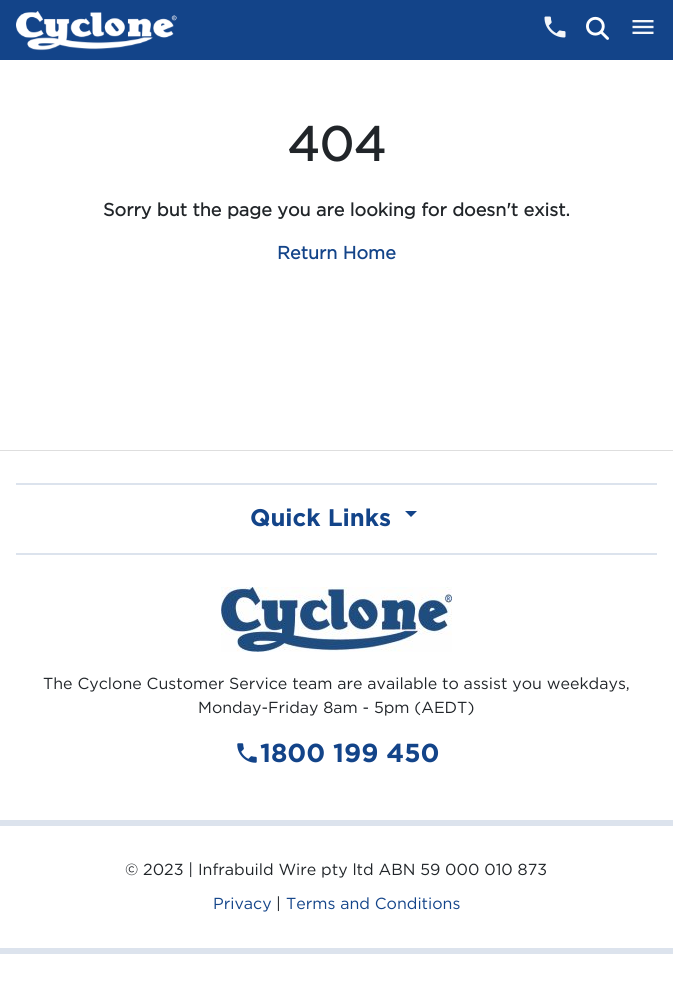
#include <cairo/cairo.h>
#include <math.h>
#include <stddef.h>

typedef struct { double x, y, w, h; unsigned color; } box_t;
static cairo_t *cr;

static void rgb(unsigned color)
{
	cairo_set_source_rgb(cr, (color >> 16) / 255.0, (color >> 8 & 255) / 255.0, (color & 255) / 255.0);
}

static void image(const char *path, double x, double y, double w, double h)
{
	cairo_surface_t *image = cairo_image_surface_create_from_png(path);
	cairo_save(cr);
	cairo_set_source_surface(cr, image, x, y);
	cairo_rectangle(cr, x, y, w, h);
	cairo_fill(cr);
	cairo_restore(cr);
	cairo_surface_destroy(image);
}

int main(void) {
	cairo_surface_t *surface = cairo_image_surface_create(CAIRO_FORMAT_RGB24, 673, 1004);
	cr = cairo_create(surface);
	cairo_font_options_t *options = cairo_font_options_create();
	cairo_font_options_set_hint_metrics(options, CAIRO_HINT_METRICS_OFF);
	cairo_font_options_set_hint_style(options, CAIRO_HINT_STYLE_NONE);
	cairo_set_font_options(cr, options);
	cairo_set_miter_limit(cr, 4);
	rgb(0xffffff);
	cairo_paint(cr);
	rgb(0x134489);
	cairo_rectangle(cr, 0, 0, 673, 60);
	cairo_fill(cr);
	image("img/1.png", 16, 11, 161, 40);
	image("img/2.png", 544, 16, 22, 22);
	image("img/3.png", 586, 16, 23, 24);
	image("img/4.png", 632, 20, 22, 14);
	{
		static const box_t items[] = {
			{0, 450, 673, 1, 0xdedede},
			{16, 483, 641, 2, 0xdce3ed},
			{16, 553, 641, 2, 0xdce3ed},
		};
		for (size_t i = 0; i < sizeof items / sizeof *items; i++) {
			rgb(items[i].color);
			cairo_rectangle(cr, items[i].x, items[i].y, items[i].w, items[i].h);
			cairo_fill(cr);
		}
	}
	rgb(0x134489);
	cairo_new_path(cr);
	cairo_move_to(cr, 405, 511);
	cairo_line_to(cr, 411, 517);
	cairo_line_to(cr, 417, 511);
	cairo_close_path(cr);
	cairo_fill(cr);
	image("img/5.png", 221, 587, 231, 65);
	image("img/6.png", 237, 743, 20, 20);
	rgb(0xdce3ed);
	cairo_rectangle(cr, 0, 820, 673, 6);
	cairo_fill(cr);
	cairo_rectangle(cr, 0, 948, 673, 6);
	cairo_fill(cr);
	cairo_select_font_face(cr, "Gotham", CAIRO_FONT_SLANT_NORMAL, CAIRO_FONT_WEIGHT_BOLD);
	cairo_set_font_size(cr, 48);
	rgb(0x212529);
	cairo_move_to(cr, 287, 161);
	cairo_show_text(cr, "404");
	cairo_set_font_size(cr, 18);
	cairo_move_to(cr, 103, 216);
	cairo_show_text(cr, "Sorry but the page you are looking for doesn't exist.");
	rgb(0x134489);
	cairo_move_to(cr, 277, 259);
	cairo_show_text(cr, "Return Home");
	cairo_select_font_face(cr, "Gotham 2", CAIRO_FONT_SLANT_NORMAL, CAIRO_FONT_WEIGHT_BOLD);
	cairo_set_font_size(cr, 24);
	cairo_move_to(cr, 250, 526);
	cairo_show_text(cr, "Quick Links");
	cairo_select_font_face(cr, "Gotham", CAIRO_FONT_SLANT_NORMAL, CAIRO_FONT_WEIGHT_NORMAL);
	cairo_set_font_size(cr, 16);
	rgb(0x212529);
	cairo_move_to(cr, 43, 689);
	cairo_show_text(cr, "The Cyclone Customer Service team are available to assist you weekdays,");
	cairo_move_to(cr, 198, 713);
	cairo_show_text(cr, "Monday-Friday 8am - 5pm (AEDT)");
	cairo_select_font_face(cr, "Gotham 2", CAIRO_FONT_SLANT_NORMAL, CAIRO_FONT_WEIGHT_BOLD);
	cairo_set_font_size(cr, 26);
	rgb(0x134489);
	cairo_move_to(cr, 260, 762);
	cairo_show_text(cr, "1800 199 450");
	cairo_select_font_face(cr, "Gotham", CAIRO_FONT_SLANT_NORMAL, CAIRO_FONT_WEIGHT_NORMAL);
	cairo_set_font_size(cr, 16);
	rgb(0x212529);
	cairo_move_to(cr, 125, 875);
	cairo_show_text(cr, "© 2023 | Infrabuild Wire pty ltd ABN 59 000 010 873");
	rgb(0x134489);
	cairo_move_to(cr, 213, 909);
	cairo_show_text(cr, "Privacy");
	rgb(0x212529);
	cairo_move_to(cr, 276, 909);
	cairo_show_text(cr, "|");
	rgb(0x134489);
	cairo_move_to(cr, 286, 909);
	cairo_show_text(cr, "Terms and Conditions");
	cairo_surface_write_to_png(surface, "page.png");
	cairo_font_options_destroy(options);
	cairo_destroy(cr);
	cairo_surface_destroy(surface);
	return 0;
}
